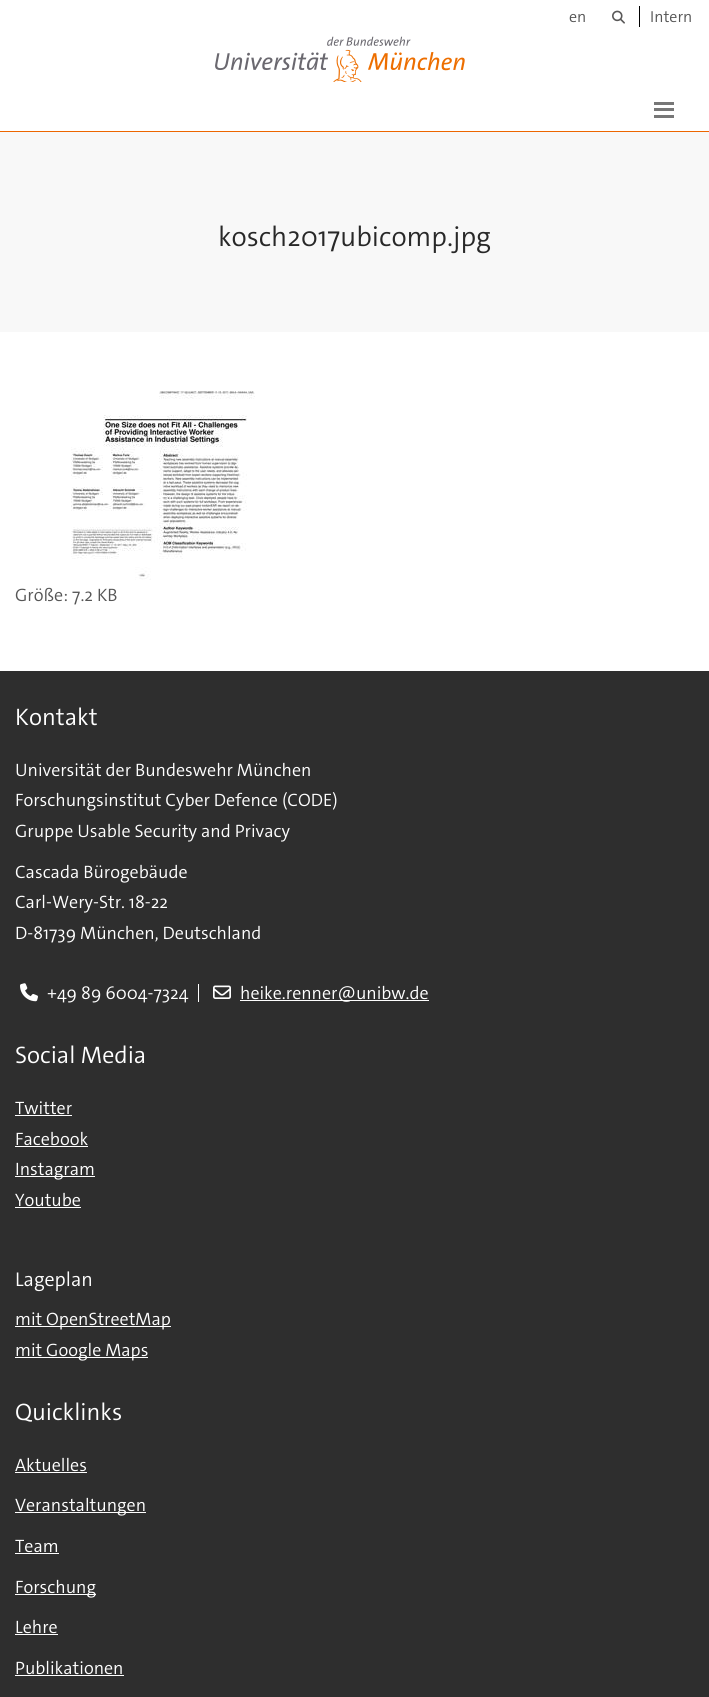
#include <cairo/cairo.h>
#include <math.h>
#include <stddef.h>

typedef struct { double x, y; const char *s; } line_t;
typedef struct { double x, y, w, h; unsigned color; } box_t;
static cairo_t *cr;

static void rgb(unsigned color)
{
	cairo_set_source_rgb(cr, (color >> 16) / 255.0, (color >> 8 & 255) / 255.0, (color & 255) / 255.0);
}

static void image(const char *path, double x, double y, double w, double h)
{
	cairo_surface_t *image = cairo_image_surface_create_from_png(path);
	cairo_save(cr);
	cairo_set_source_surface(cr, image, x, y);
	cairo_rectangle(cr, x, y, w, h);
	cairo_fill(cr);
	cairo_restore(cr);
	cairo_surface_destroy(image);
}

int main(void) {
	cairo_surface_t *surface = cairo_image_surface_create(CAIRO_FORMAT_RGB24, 709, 1697);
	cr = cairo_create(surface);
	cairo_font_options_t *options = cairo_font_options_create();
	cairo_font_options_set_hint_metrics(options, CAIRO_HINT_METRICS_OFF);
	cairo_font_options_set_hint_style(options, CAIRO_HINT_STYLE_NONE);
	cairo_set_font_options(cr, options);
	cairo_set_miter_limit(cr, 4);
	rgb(0xffffff);
	cairo_paint(cr);
	rgb(0xed6600);
	cairo_rectangle(cr, 0, 131, 709, 1);
	cairo_fill(cr);
	image("img/1.png", 612, 10, 13, 14);
	rgb(0x000000);
	cairo_rectangle(cr, 639, 6, 1, 21);
	cairo_fill(cr);
	image("img/2.png", 333, 49, 29, 33);
	image("img/3.png", 215, 36, 250, 35);
	{
		static const box_t items[] = {
			{654, 102, 20, 3, 0x777777},
			{654, 108, 20, 3, 0x777777},
			{654, 115, 20, 3, 0x777777},
			{0, 132, 709, 200, 0xf8f8f8},
		};
		for (size_t i = 0; i < sizeof items / sizeof *items; i++) {
			rgb(items[i].color);
			cairo_rectangle(cr, items[i].x, items[i].y, items[i].w, items[i].h);
			cairo_fill(cr);
		}
	}
	image("img/4.png", 71, 391, 184, 189);
	rgb(0x2e2e2e);
	cairo_rectangle(cr, 0, 671, 709, 1026);
	cairo_fill(cr);
	rgb(0xffffff);
	cairo_rectangle(cr, 198, 984, 1, 18);
	cairo_fill(cr);
	image("img/5.png", 20, 983, 18, 19);
	image("img/6.png", 213, 985, 18, 14);
	{
		static const box_t items[] = {
			{240, 1000, 189, 1, 0xffffff},
			{15, 1115, 57, 1, 0xffffff},
			{15, 1146, 73, 1, 0xffffff},
			{15, 1176, 80, 1, 0xffffff},
			{15, 1207, 66, 1, 0xffffff},
			{15, 1326, 156, 1, 0xffffff},
			{15, 1357, 133, 1, 0xffffff},
			{15, 1472, 72, 1, 0xffffff},
			{15, 1512, 131, 1, 0xffffff},
			{15, 1553, 44, 1, 0xffffff},
			{15, 1594, 81, 1, 0xffffff},
			{15, 1634, 43, 1, 0xffffff},
			{15, 1675, 109, 1, 0xffffff},
		};
		for (size_t i = 0; i < sizeof items / sizeof *items; i++) {
			rgb(items[i].color);
			cairo_rectangle(cr, items[i].x, items[i].y, items[i].w, items[i].h);
			cairo_fill(cr);
		}
	}
	cairo_select_font_face(cr, "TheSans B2 Light", CAIRO_FONT_SLANT_NORMAL, CAIRO_FONT_WEIGHT_NORMAL);
	cairo_set_font_size(cr, 16);
	rgb(0x565656);
	cairo_move_to(cr, 569, 22);
	cairo_show_text(cr, "en");
	cairo_move_to(cr, 650, 22);
	cairo_show_text(cr, "Intern");
	cairo_set_font_size(cr, 28);
	rgb(0x282828);
	cairo_move_to(cr, 218, 246);
	cairo_show_text(cr, "kosch2017ubicomp.jpg");
	cairo_set_font_size(cr, 18);
	rgb(0x565656);
	cairo_move_to(cr, 15, 601);
	cairo_show_text(cr, "Größe: 7.2 KB");
	cairo_set_font_size(cr, 24);
	rgb(0xffffff);
	cairo_move_to(cr, 15, 725);
	cairo_show_text(cr, "Kontakt");
	cairo_set_font_size(cr, 18);
	{
		static const line_t items[] = {
			{15, 776, "Universität der Bundeswehr München"},
			{15, 806, "Forschungsinstitut Cyber Defence (CODE)"},
			{15, 837, "Gruppe Usable Security and Privacy"},
			{15, 878, "Cascada Bürogebäude"},
			{15, 908, "Carl-Wery-Str. 18-22"},
			{15, 939, "D-81739 München, Deutschland"},
			{47, 999, "+49 89 6004-7324"},
			{240, 999, "heike.renner@unibw.de"},
		};
		for (size_t i = 0; i < sizeof items / sizeof *items; i++) {
			cairo_move_to(cr, items[i].x, items[i].y);
			cairo_show_text(cr, items[i].s);
		}
	}
	cairo_set_font_size(cr, 24);
	cairo_move_to(cr, 15, 1063);
	cairo_show_text(cr, "Social Media");
	cairo_set_font_size(cr, 18);
	{
		static const line_t items[] = {
			{15, 1114, "Twitter"},
			{15, 1145, "Facebook"},
			{15, 1175, "Instagram"},
			{15, 1206, "Youtube"},
		};
		for (size_t i = 0; i < sizeof items / sizeof *items; i++) {
			cairo_move_to(cr, items[i].x, items[i].y);
			cairo_show_text(cr, items[i].s);
		}
	}
	cairo_set_font_size(cr, 20);
	cairo_move_to(cr, 15, 1286);
	cairo_show_text(cr, "Lageplan");
	cairo_set_font_size(cr, 18);
	cairo_move_to(cr, 15, 1325);
	cairo_show_text(cr, "mit OpenStreetMap");
	cairo_move_to(cr, 15, 1356);
	cairo_show_text(cr, "mit Google Maps");
	cairo_set_font_size(cr, 24);
	cairo_move_to(cr, 15, 1420);
	cairo_show_text(cr, "Quicklinks");
	cairo_set_font_size(cr, 18);
	{
		static const line_t items[] = {
			{15, 1471, "Aktuelles"},
			{15, 1511, "Veranstaltungen"},
			{15, 1552, "Team"},
			{15, 1593, "Forschung"},
			{15, 1633, "Lehre"},
			{15, 1674, "Publikationen"},
		};
		for (size_t i = 0; i < sizeof items / sizeof *items; i++) {
			cairo_move_to(cr, items[i].x, items[i].y);
			cairo_show_text(cr, items[i].s);
		}
	}
	cairo_surface_write_to_png(surface, "page.png");
	cairo_font_options_destroy(options);
	cairo_destroy(cr);
	cairo_surface_destroy(surface);
	return 0;
}
